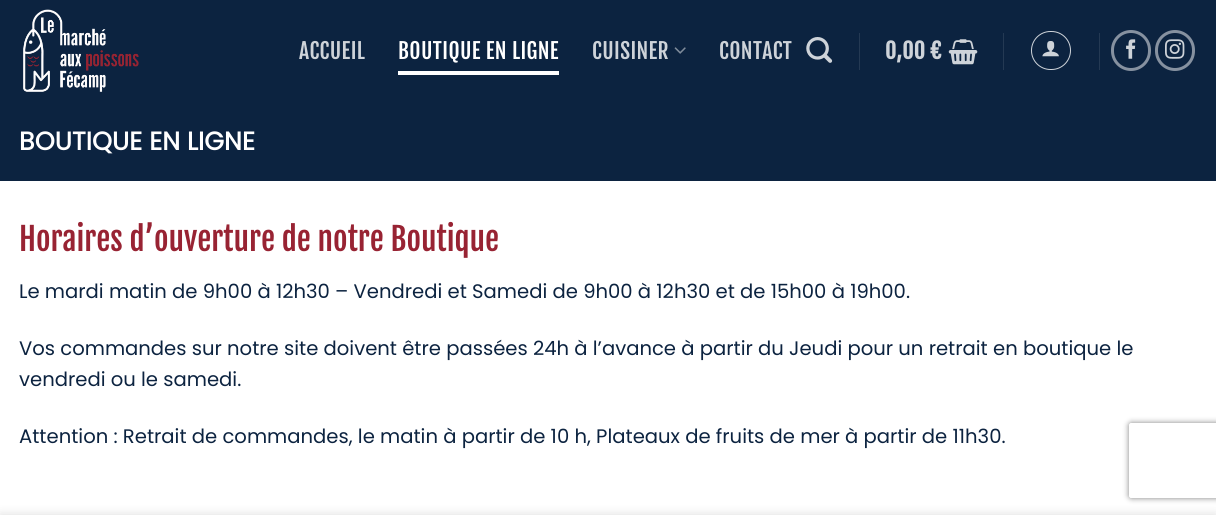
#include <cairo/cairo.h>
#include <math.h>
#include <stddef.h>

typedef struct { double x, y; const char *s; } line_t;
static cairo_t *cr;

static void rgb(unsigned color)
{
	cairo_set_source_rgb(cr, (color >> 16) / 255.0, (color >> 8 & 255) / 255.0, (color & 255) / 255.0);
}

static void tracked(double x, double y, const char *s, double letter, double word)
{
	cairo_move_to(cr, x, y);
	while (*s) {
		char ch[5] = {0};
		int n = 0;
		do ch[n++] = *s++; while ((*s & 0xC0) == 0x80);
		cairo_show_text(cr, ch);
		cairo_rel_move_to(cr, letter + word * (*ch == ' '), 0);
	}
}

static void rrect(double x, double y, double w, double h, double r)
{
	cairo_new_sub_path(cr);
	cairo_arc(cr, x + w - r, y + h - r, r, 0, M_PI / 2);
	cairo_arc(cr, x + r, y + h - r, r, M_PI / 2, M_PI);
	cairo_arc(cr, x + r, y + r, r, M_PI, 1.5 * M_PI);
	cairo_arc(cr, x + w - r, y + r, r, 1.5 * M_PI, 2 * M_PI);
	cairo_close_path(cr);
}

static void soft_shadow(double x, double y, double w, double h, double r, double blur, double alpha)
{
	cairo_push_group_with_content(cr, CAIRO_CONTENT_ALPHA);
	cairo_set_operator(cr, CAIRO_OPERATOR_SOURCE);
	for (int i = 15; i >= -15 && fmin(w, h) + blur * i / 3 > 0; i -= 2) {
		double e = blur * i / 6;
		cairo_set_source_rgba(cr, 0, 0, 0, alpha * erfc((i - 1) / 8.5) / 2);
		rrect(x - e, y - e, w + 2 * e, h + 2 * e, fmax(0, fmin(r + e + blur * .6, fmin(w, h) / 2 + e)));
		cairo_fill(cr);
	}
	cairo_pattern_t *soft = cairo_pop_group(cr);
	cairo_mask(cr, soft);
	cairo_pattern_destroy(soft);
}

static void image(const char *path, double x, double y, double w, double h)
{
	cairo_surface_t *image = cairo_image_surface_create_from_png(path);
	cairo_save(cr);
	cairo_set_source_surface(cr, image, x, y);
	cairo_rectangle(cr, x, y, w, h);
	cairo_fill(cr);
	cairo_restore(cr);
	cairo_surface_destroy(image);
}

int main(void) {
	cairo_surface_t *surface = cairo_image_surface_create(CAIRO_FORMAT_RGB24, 1216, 515);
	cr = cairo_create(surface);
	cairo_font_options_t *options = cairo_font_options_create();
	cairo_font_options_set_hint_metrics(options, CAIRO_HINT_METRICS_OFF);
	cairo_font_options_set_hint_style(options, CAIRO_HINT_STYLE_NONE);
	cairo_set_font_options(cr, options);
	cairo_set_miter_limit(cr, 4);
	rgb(0xffffff);
	cairo_paint(cr);
	rgb(0x0c2340);
	cairo_rectangle(cr, 0, 0, 1216, 181);
	cairo_fill(cr);
	image("img/1.png", 23, 9, 116, 83);
	rgb(0xffffff);
	cairo_rectangle(cr, 398, 71, 161, 4);
	cairo_fill(cr);
	image("img/2.png", 674, 47, 12, 7);
	image("img/3.png", 806, 37, 27, 26);
	rgb(0x243953);
	cairo_rectangle(cr, 859, 33, 1, 37);
	cairo_fill(cr);
	image("img/4.png", 948, 39, 30, 26);
	cairo_rectangle(cr, 1003, 33, 1, 37);
	cairo_fill(cr);
	rrect(1031.5, 31.5, 39, 38, 19);
	rgb(0xced3d9);
	cairo_set_line_width(cr, 1);
	cairo_stroke(cr);
	image("img/5.png", 1042, 41, 17, 16);
	rgb(0x243953);
	cairo_rectangle(cr, 1099, 33, 1, 37);
	cairo_fill(cr);
	rrect(1112.5, 31.5, 37, 38, 18.5);
	rgb(0x8691a0);
	cairo_set_line_width(cr, 3);
	cairo_stroke(cr);
	image("img/6.png", 1126, 39, 10, 20);
	rrect(1156.5, 31.5, 37, 38, 18.5);
	cairo_stroke(cr);
	image("img/7.png", 1165, 39, 20, 20);
	cairo_save(cr);
	cairo_set_fill_rule(cr, CAIRO_FILL_RULE_EVEN_ODD);
	cairo_new_path(cr);
	cairo_move_to(cr, 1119, 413);
	cairo_line_to(cr, 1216, 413);
	cairo_line_to(cr, 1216, 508);
	cairo_line_to(cr, 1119, 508);
	cairo_close_path(cr);
	cairo_move_to(cr, 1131.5, 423);
	cairo_line_to(cr, 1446.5, 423);
	cairo_curve_to(cr, 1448, 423, 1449, 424, 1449, 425.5);
	cairo_line_to(cr, 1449, 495.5);
	cairo_curve_to(cr, 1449, 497, 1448, 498, 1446.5, 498);
	cairo_line_to(cr, 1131.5, 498);
	cairo_curve_to(cr, 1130, 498, 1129, 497, 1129, 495.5);
	cairo_line_to(cr, 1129, 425.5);
	cairo_curve_to(cr, 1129, 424, 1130, 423, 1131.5, 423);
	cairo_close_path(cr);
	cairo_clip(cr);
	rgb(0x808080);
	soft_shadow(1129, 423, 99, 75, 2.5, 3, 1);
	cairo_restore(cr);
	rgb(0x000000);
	soft_shadow(0, 515, 1216, 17, 0, 5.5, 0.14);
	cairo_select_font_face(cr, "Fjalla One", CAIRO_FONT_SLANT_NORMAL, CAIRO_FONT_WEIGHT_NORMAL);
	cairo_set_font_size(cr, 21.5);
	rgb(0xced3d9);
	tracked(299, 59, "ACCUEIL", 0.4, 0);
	rgb(0xffffff);
	tracked(398, 59, "BOUTIQUE EN LIGNE", 0.4, 0);
	rgb(0xced3d9);
	tracked(592, 59, "CUISINER", 0.4, 0);
	tracked(719, 59, "CONTACT", 0.4, 0);
	cairo_select_font_face(cr, "Fjalla One", CAIRO_FONT_SLANT_NORMAL, CAIRO_FONT_WEIGHT_BOLD);
	tracked(885, 59, "0,00 €", 0.4, 0);
	cairo_select_font_face(cr, "Poppins", CAIRO_FONT_SLANT_NORMAL, CAIRO_FONT_WEIGHT_BOLD);
	cairo_set_font_size(cr, 25.5);
	rgb(0xffffff);
	cairo_move_to(cr, 19, 150);
	cairo_show_text(cr, "BOUTIQUE EN LIGNE");
	cairo_select_font_face(cr, "Fjalla One", CAIRO_FONT_SLANT_NORMAL, CAIRO_FONT_WEIGHT_NORMAL);
	cairo_set_font_size(cr, 31.4);
	rgb(0x982333);
	cairo_move_to(cr, 19, 251);
	cairo_show_text(cr, "Horaires d’ouverture de notre Boutique");
	cairo_select_font_face(cr, "Poppins", CAIRO_FONT_SLANT_NORMAL, CAIRO_FONT_WEIGHT_NORMAL);
	cairo_set_font_size(cr, 19.6);
	rgb(0x0c2340);
	{
		static const line_t items[] = {
			{19, 298, "Le mardi matin de 9h00 à 12h30 – Vendredi et Samedi de 9h00 à 12h30 et de 15h00 à 19h00."},
			{19, 355, "Vos commandes sur notre site doivent être passées 24h à l’avance à partir du Jeudi pour un retrait en boutique le"},
			{19, 386, "vendredi ou le samedi."},
			{19, 443, "Attention : Retrait de commandes, le matin à partir de 10 h, Plateaux de fruits de mer à partir de 11h30."},
		};
		for (size_t i = 0; i < sizeof items / sizeof *items; i++) {
			cairo_move_to(cr, items[i].x, items[i].y);
			cairo_show_text(cr, items[i].s);
		}
	}
	cairo_surface_write_to_png(surface, "page.png");
	cairo_font_options_destroy(options);
	cairo_destroy(cr);
	cairo_surface_destroy(surface);
	return 0;
}
